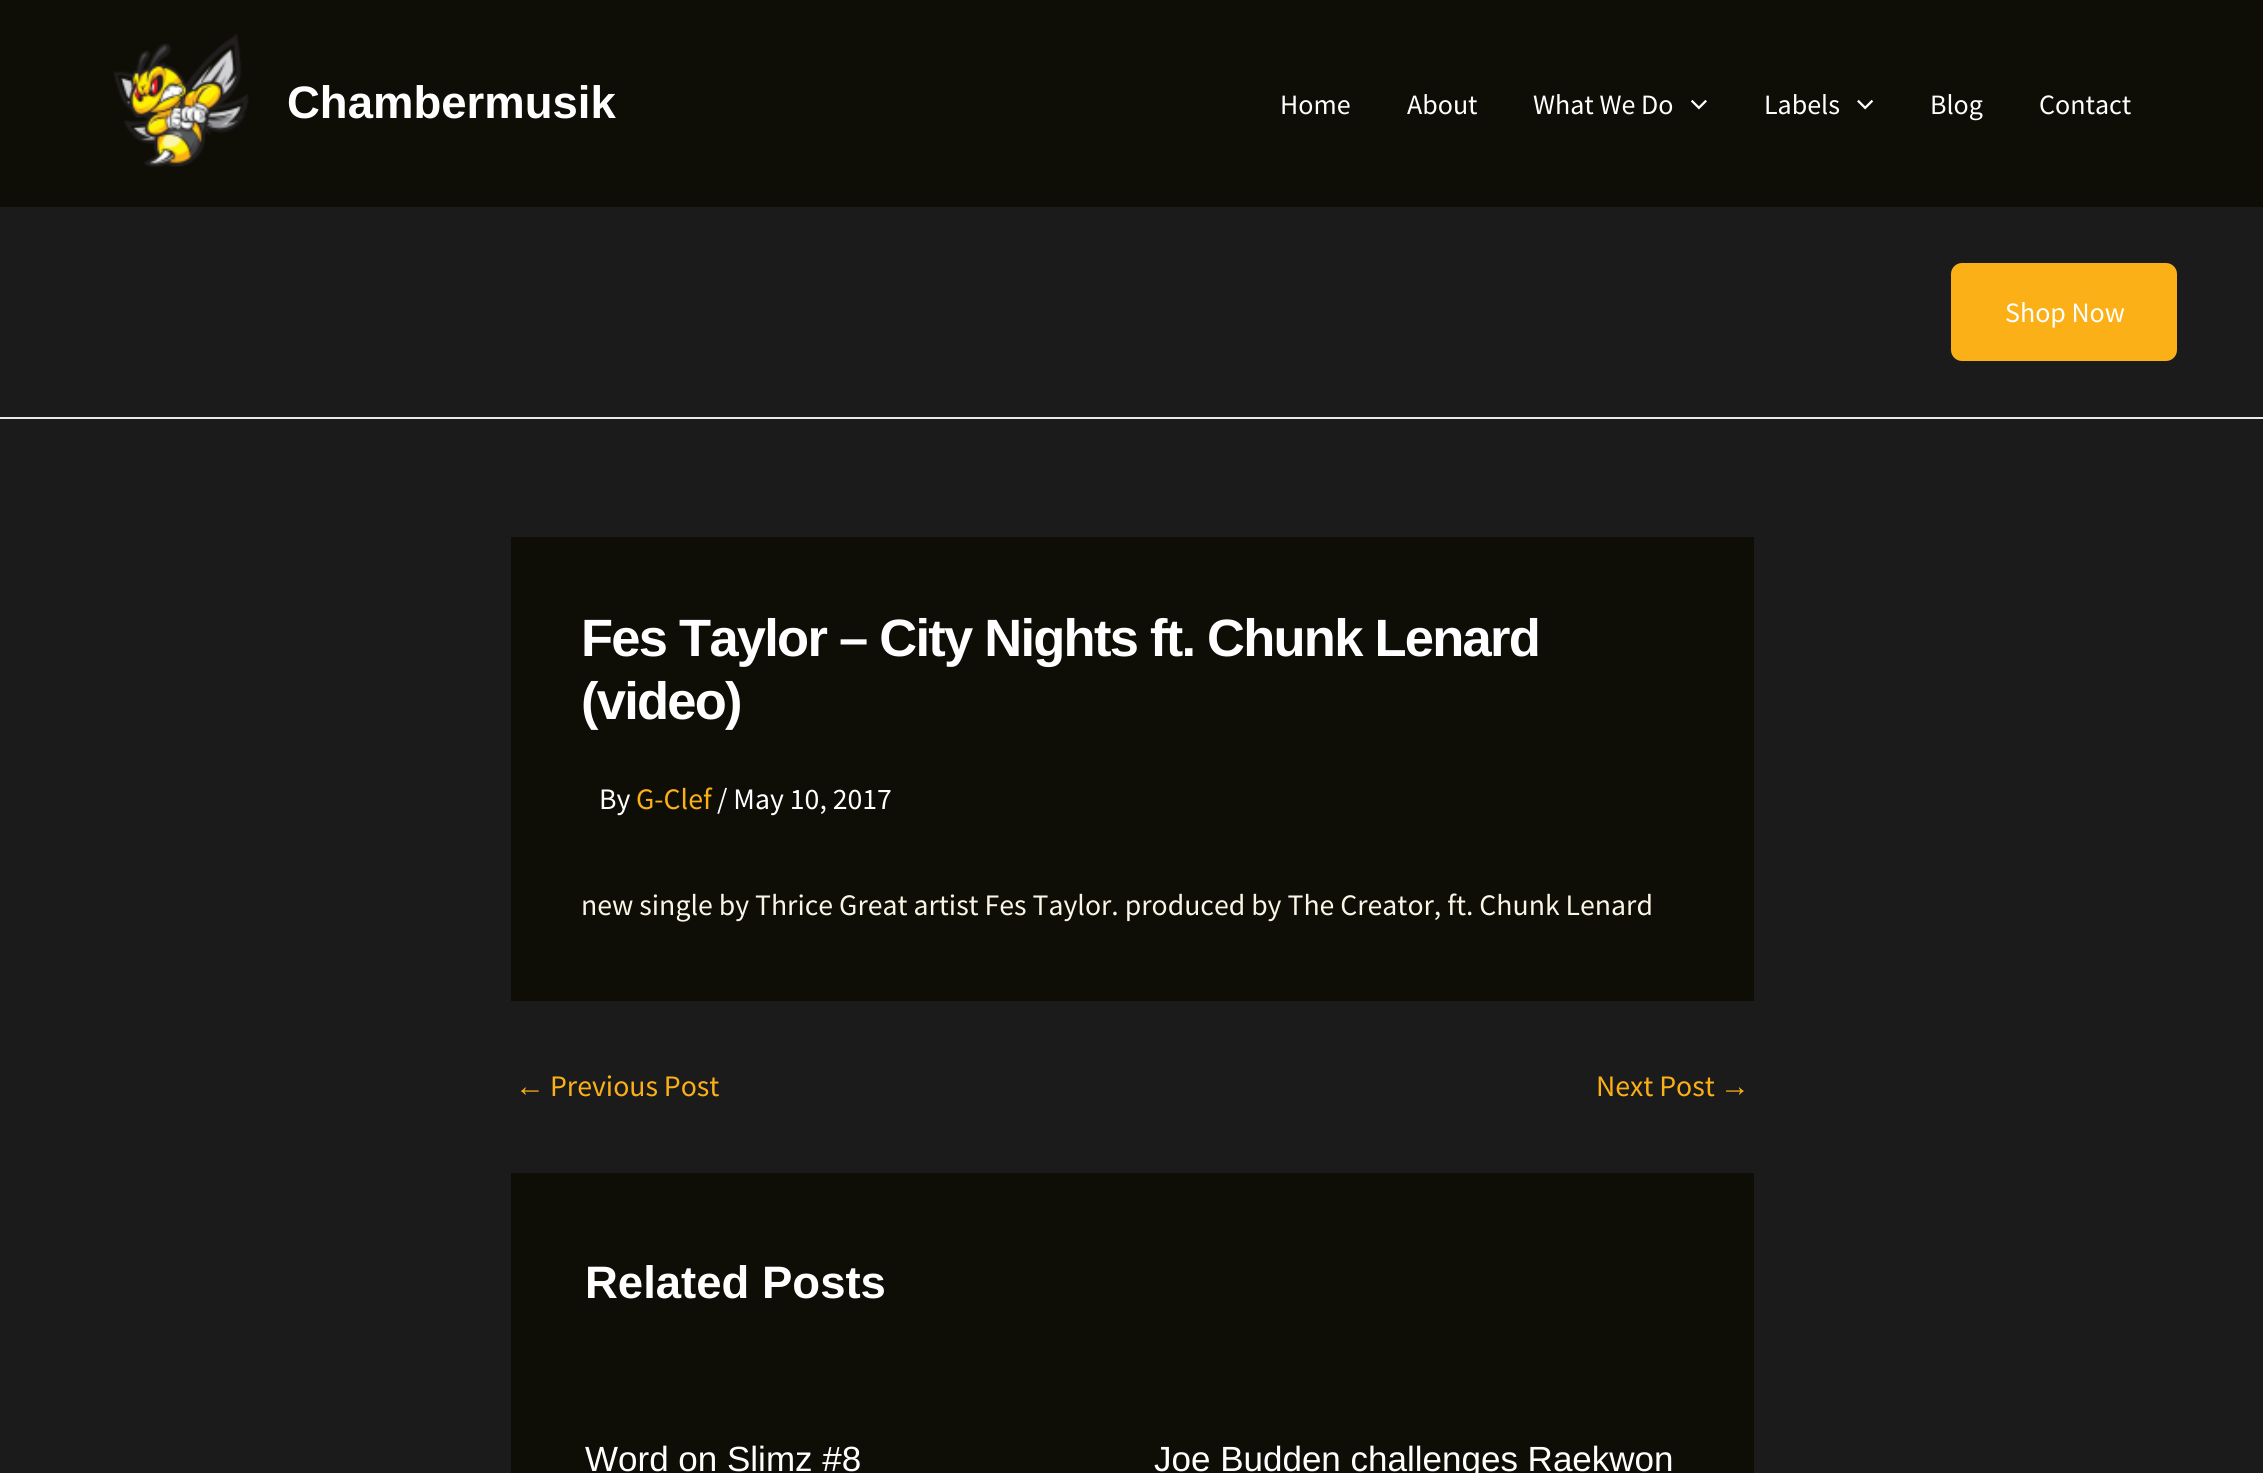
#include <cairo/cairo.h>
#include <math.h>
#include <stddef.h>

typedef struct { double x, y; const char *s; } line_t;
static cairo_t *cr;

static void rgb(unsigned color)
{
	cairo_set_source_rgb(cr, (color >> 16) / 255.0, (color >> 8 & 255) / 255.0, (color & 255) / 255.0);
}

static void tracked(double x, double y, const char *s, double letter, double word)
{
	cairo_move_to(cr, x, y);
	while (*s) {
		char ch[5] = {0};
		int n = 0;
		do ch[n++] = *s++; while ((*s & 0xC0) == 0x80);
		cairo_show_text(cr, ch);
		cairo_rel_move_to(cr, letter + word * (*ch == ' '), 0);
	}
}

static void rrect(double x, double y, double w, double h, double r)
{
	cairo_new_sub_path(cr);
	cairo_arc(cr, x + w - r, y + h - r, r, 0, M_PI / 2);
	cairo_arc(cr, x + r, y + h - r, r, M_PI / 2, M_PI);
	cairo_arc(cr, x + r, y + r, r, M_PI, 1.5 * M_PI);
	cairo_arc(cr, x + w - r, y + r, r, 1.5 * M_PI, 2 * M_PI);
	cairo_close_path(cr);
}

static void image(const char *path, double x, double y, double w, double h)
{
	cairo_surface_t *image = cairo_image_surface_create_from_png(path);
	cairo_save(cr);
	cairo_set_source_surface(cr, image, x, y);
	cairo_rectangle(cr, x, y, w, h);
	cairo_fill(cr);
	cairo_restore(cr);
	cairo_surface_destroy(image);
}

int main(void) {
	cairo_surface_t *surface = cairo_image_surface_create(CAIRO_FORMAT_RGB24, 2263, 1473);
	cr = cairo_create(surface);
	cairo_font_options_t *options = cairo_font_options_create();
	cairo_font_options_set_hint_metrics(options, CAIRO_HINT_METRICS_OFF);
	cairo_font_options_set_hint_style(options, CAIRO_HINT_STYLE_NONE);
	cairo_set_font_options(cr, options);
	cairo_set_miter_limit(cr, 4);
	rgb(0x1b1b1b);
	cairo_paint(cr);
	rgb(0x0e0d06);
	cairo_rectangle(cr, 0, 0, 2263, 207);
	cairo_fill(cr);
	image("img/1.png", 113, 33, 136, 134);
	image("img/2.png", 1691, 99, 16, 11);
	image("img/3.png", 1857, 99, 17, 11);
	rgb(0xeaeaea);
	cairo_rectangle(cr, 0, 417, 2263, 2);
	cairo_fill(cr);
	rgb(0xfbb017);
	rrect(1953, 265, 222, 94, 9);
	cairo_fill_preserve(cr);
	cairo_set_line_width(cr, 4);
	cairo_stroke(cr);
	rgb(0x0e0d06);
	cairo_rectangle(cr, 511, 537, 1243, 464);
	cairo_fill(cr);
	cairo_rectangle(cr, 511, 1173, 1243, 300);
	cairo_fill(cr);
	cairo_select_font_face(cr, "Liberation Sans", CAIRO_FONT_SLANT_NORMAL, CAIRO_FONT_WEIGHT_BOLD);
	cairo_set_font_size(cr, 45.5);
	rgb(0xffffff);
	cairo_move_to(cr, 287, 118);
	cairo_show_text(cr, "Chambermusik");
	cairo_select_font_face(cr, "Source Sans Pro", CAIRO_FONT_SLANT_NORMAL, CAIRO_FONT_WEIGHT_NORMAL);
	cairo_set_font_size(cr, 28);
	{
		static const line_t items[] = {
			{1280, 114, "Home"},
			{1407, 114, "About"},
			{1533, 114, "What We Do"},
			{1764, 114, "Labels"},
			{1930, 114, "Blog"},
			{2039, 114, "Contact"},
			{2005, 322, "Shop Now"},
		};
		for (size_t i = 0; i < sizeof items / sizeof *items; i++) {
			cairo_move_to(cr, items[i].x, items[i].y);
			cairo_show_text(cr, items[i].s);
		}
	}
	cairo_select_font_face(cr, "Liberation Sans", CAIRO_FONT_SLANT_NORMAL, CAIRO_FONT_WEIGHT_BOLD);
	cairo_set_font_size(cr, 52.5);
	tracked(581, 656, "Fes Taylor – City Nights ft. Chunk Lenard", -1.75, 0);
	tracked(581, 719, "(video)", -1.75, 0);
	cairo_select_font_face(cr, "Source Sans Pro", CAIRO_FONT_SLANT_NORMAL, CAIRO_FONT_WEIGHT_NORMAL);
	cairo_set_font_size(cr, 29.75);
	cairo_move_to(cr, 599, 809);
	cairo_show_text(cr, "By");
	rgb(0xfbb017);
	cairo_move_to(cr, 636, 809);
	cairo_show_text(cr, "G-Clef");
	rgb(0xffffff);
	cairo_move_to(cr, 717, 809);
	cairo_show_text(cr, "/ May 10, 2017");
	rgb(0xfaf5e5);
	cairo_move_to(cr, 581, 915);
	cairo_show_text(cr, "new single by Thrice Great artist Fes Taylor. produced by The Creator, ft. Chunk Lenard");
	cairo_select_font_face(cr, "Liberation Sans", CAIRO_FONT_SLANT_NORMAL, CAIRO_FONT_WEIGHT_NORMAL);
	rgb(0xfbb017);
	cairo_move_to(cr, 515, 1096);
	cairo_show_text(cr, "←");
	cairo_select_font_face(cr, "Source Sans Pro", CAIRO_FONT_SLANT_NORMAL, CAIRO_FONT_WEIGHT_NORMAL);
	cairo_move_to(cr, 550, 1096);
	cairo_show_text(cr, "Previous Post");
	cairo_move_to(cr, 1596, 1096);
	cairo_show_text(cr, "Next Post");
	cairo_select_font_face(cr, "Liberation Sans", CAIRO_FONT_SLANT_NORMAL, CAIRO_FONT_WEIGHT_NORMAL);
	cairo_move_to(cr, 1720, 1096);
	cairo_show_text(cr, "→");
	cairo_select_font_face(cr, "Liberation Sans", CAIRO_FONT_SLANT_NORMAL, CAIRO_FONT_WEIGHT_BOLD);
	cairo_set_font_size(cr, 45.5);
	rgb(0xffffff);
	cairo_move_to(cr, 585, 1298);
	cairo_show_text(cr, "Related Posts");
	cairo_select_font_face(cr, "Liberation Sans", CAIRO_FONT_SLANT_NORMAL, CAIRO_FONT_WEIGHT_NORMAL);
	cairo_set_font_size(cr, 35);
	cairo_move_to(cr, 585, 1471);
	cairo_show_text(cr, "Word on Slimz #8");
	cairo_move_to(cr, 1154, 1471);
	cairo_show_text(cr, "Joe Budden challenges Raekwon");
	cairo_surface_write_to_png(surface, "page.png");
	cairo_font_options_destroy(options);
	cairo_destroy(cr);
	cairo_surface_destroy(surface);
	return 0;
}
